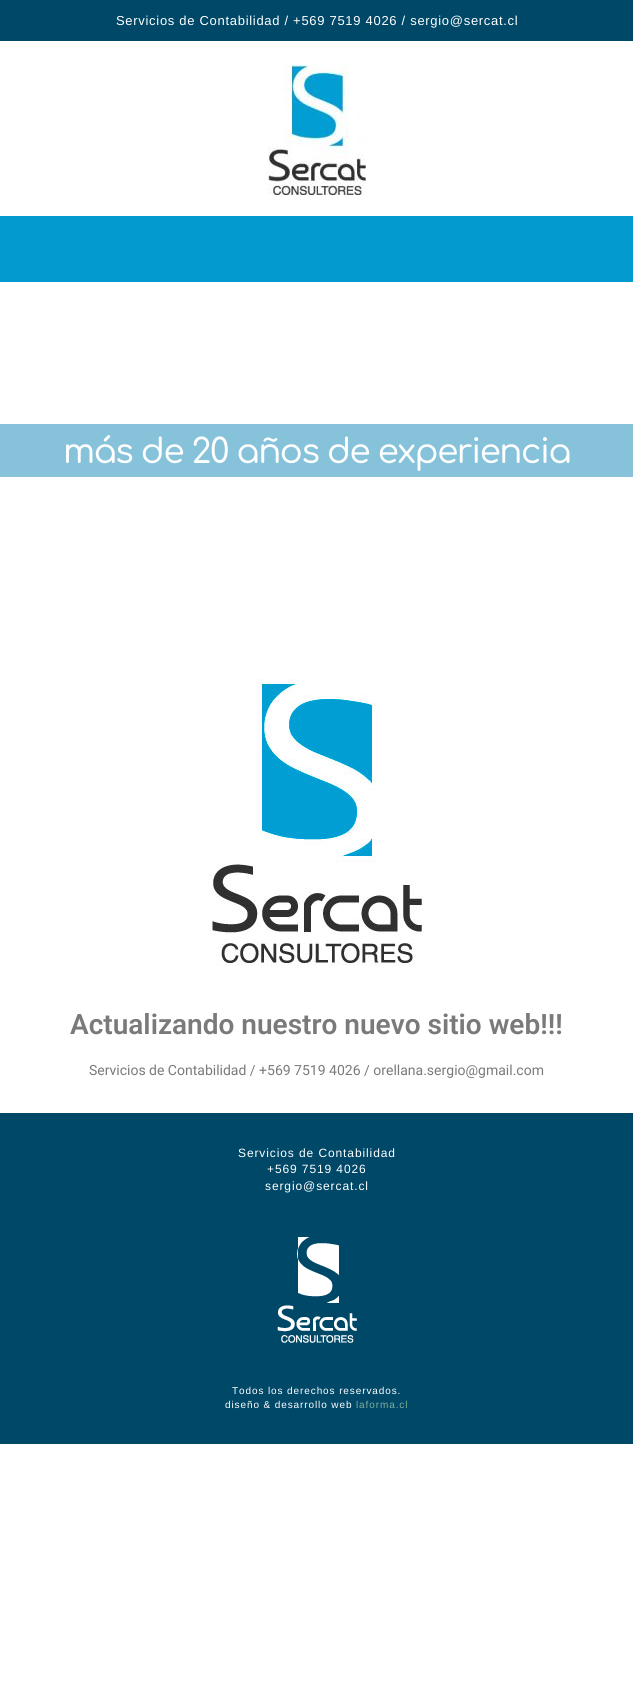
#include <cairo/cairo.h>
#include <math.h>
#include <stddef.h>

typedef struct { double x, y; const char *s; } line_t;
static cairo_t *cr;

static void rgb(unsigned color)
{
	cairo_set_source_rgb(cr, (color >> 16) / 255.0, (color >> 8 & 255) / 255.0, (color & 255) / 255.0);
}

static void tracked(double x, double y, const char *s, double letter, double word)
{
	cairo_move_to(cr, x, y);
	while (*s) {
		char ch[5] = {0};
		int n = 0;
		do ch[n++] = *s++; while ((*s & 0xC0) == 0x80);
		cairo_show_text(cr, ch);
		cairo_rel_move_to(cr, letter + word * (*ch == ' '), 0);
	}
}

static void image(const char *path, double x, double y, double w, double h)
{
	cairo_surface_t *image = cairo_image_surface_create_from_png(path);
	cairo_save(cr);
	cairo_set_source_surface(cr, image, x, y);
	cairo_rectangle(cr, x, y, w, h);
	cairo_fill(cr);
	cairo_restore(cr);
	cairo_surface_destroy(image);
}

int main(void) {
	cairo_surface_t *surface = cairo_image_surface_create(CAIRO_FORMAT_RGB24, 633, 1695);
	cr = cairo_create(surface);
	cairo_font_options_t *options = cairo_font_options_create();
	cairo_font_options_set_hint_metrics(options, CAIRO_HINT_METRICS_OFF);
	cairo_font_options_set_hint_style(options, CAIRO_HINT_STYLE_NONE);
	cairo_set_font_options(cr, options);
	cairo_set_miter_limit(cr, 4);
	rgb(0xffffff);
	cairo_paint(cr);
	rgb(0x004868);
	cairo_rectangle(cr, 0, 0, 633, 41);
	cairo_fill(cr);
	image("img/1.png", 268, 65, 98, 130);
	rgb(0x039bcf);
	cairo_rectangle(cr, 0, 216, 633, 66);
	cairo_fill(cr);
	rgb(0x87c2db);
	cairo_rectangle(cr, 0, 424, 633, 53);
	cairo_fill(cr);
	image("img/2.png", 208, 679, 216, 287);
	rgb(0x004868);
	cairo_rectangle(cr, 0, 1113, 633, 331);
	cairo_fill(cr);
	image("img/3.png", 277, 1237, 80, 106);
	cairo_select_font_face(cr, "Liberation Sans", CAIRO_FONT_SLANT_NORMAL, CAIRO_FONT_WEIGHT_NORMAL);
	cairo_set_font_size(cr, 13);
	rgb(0xffffff);
	tracked(116, 25, "Servicios de Contabilidad / +569 7519 4026 / sergio@sercat.cl", 0.7, 0);
	cairo_select_font_face(cr, "Comfortaa Medium", CAIRO_FONT_SLANT_NORMAL, CAIRO_FONT_WEIGHT_NORMAL);
	cairo_set_font_size(cr, 34);
	tracked(63, 463, "más de 20 años de experiencia", -1.4, 0);
	cairo_select_font_face(cr, "Roboto SemiBold", CAIRO_FONT_SLANT_NORMAL, CAIRO_FONT_WEIGHT_NORMAL);
	cairo_set_font_size(cr, 28);
	rgb(0x7a7a7a);
	cairo_move_to(cr, 70, 1034);
	cairo_show_text(cr, "Actualizando nuestro nuevo sitio web!!!");
	cairo_select_font_face(cr, "Roboto", CAIRO_FONT_SLANT_NORMAL, CAIRO_FONT_WEIGHT_NORMAL);
	cairo_set_font_size(cr, 14);
	cairo_move_to(cr, 89, 1075);
	cairo_show_text(cr, "Servicios de Contabilidad / +569 7519 4026 / orellana.sergio@gmail.com");
	cairo_select_font_face(cr, "Liberation Sans", CAIRO_FONT_SLANT_NORMAL, CAIRO_FONT_WEIGHT_NORMAL);
	cairo_set_font_size(cr, 12);
	rgb(0xffffff);
	{
		static const line_t items[] = {
			{238, 1157, "Servicios de Contabilidad"},
			{267, 1173, "+569 7519 4026"},
			{265, 1190, "sergio@sercat.cl"},
		};
		for (size_t i = 0; i < sizeof items / sizeof *items; i++) {
			tracked(items[i].x, items[i].y, items[i].s, 0.9, 0);
		}
	}
	cairo_set_font_size(cr, 10);
	tracked(232, 1394, "Todos los derechos reservados.", 0.9, 0);
	tracked(225, 1408, "diseño & desarrollo web", 0.9, 0);
	rgb(0x80ad9a);
	tracked(356, 1408, "laforma.cl", 0.9, 0);
	cairo_surface_write_to_png(surface, "page.png");
	cairo_font_options_destroy(options);
	cairo_destroy(cr);
	cairo_surface_destroy(surface);
	return 0;
}
